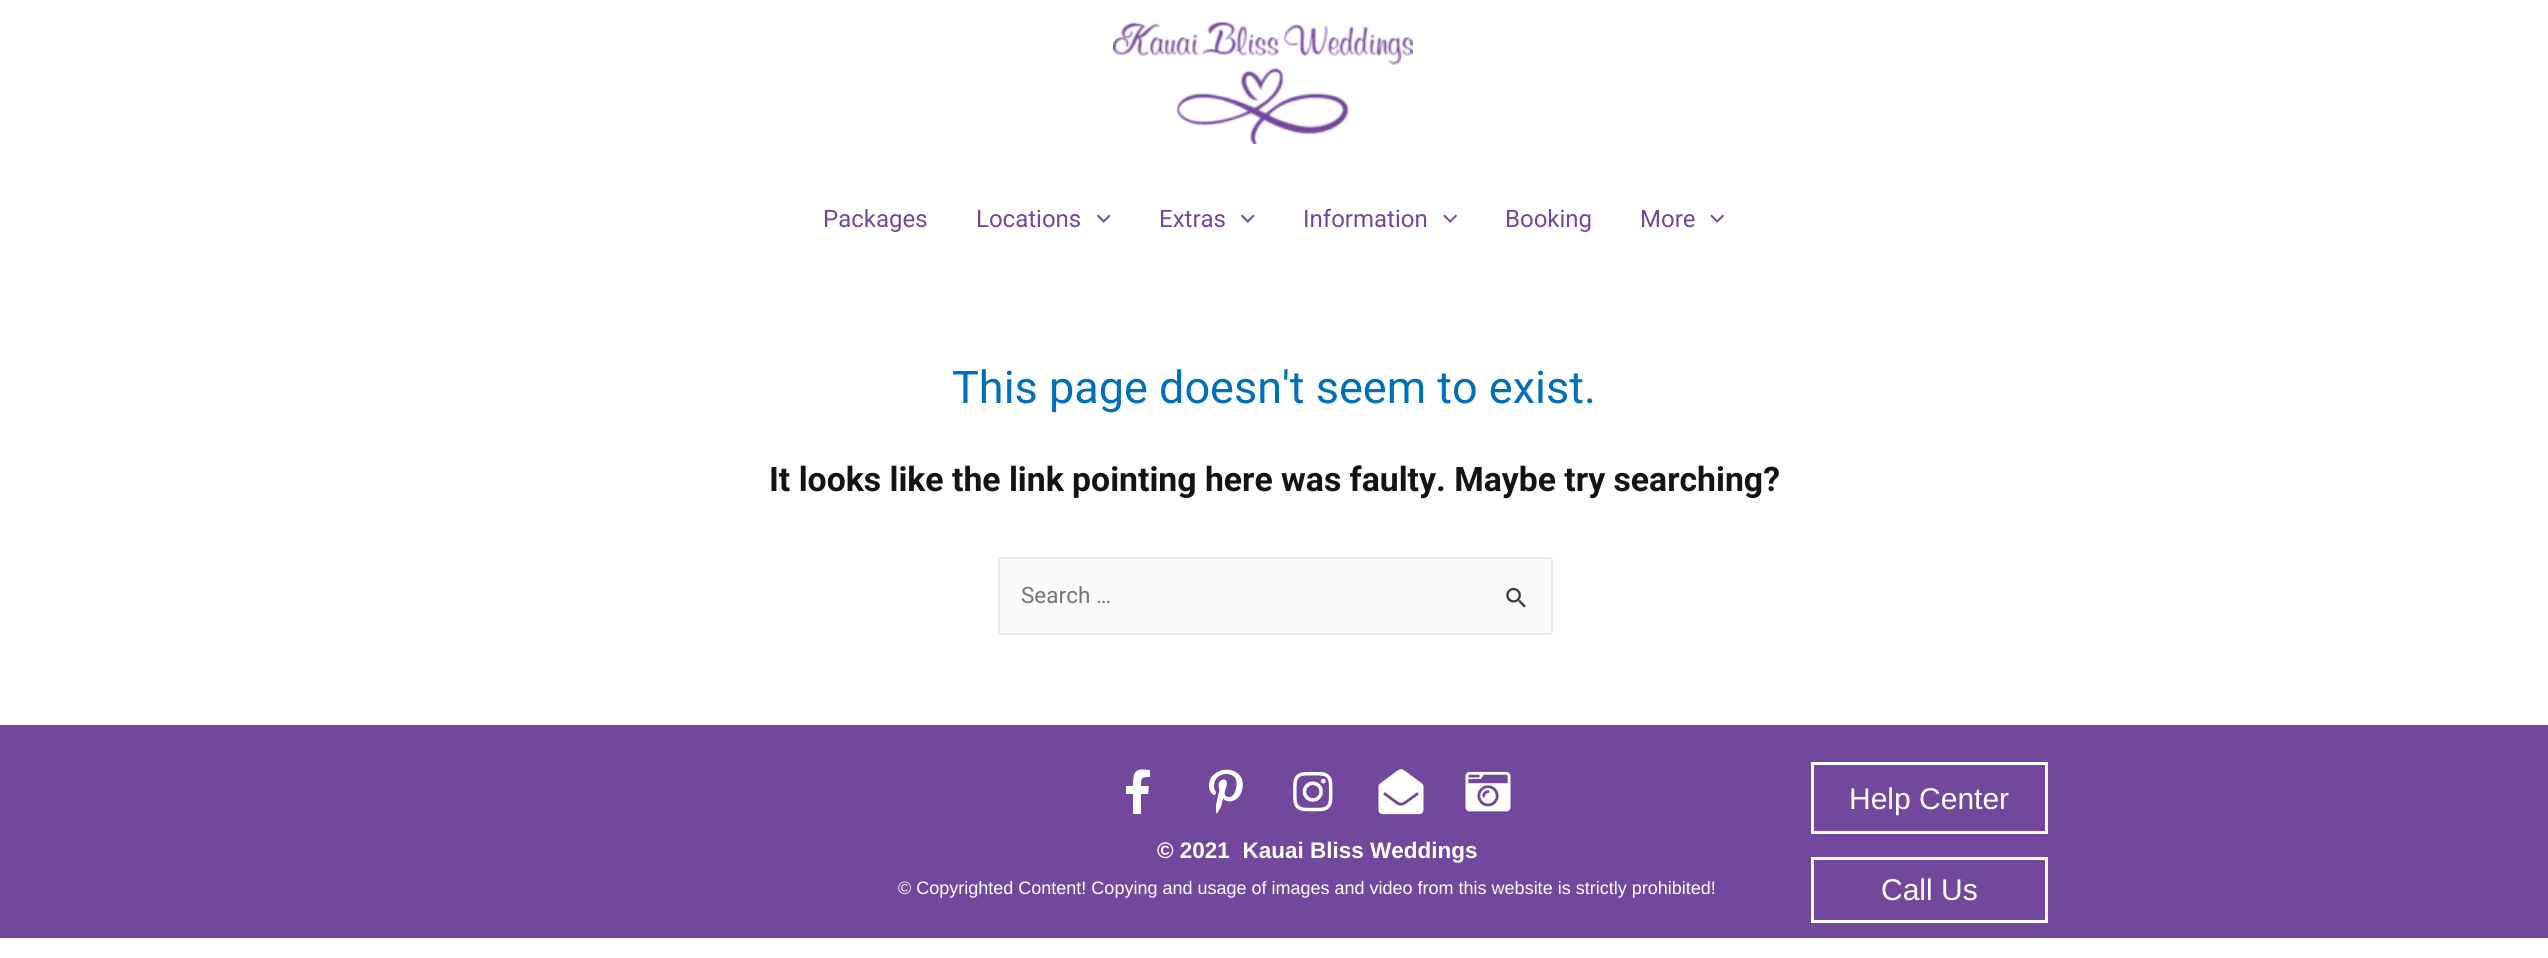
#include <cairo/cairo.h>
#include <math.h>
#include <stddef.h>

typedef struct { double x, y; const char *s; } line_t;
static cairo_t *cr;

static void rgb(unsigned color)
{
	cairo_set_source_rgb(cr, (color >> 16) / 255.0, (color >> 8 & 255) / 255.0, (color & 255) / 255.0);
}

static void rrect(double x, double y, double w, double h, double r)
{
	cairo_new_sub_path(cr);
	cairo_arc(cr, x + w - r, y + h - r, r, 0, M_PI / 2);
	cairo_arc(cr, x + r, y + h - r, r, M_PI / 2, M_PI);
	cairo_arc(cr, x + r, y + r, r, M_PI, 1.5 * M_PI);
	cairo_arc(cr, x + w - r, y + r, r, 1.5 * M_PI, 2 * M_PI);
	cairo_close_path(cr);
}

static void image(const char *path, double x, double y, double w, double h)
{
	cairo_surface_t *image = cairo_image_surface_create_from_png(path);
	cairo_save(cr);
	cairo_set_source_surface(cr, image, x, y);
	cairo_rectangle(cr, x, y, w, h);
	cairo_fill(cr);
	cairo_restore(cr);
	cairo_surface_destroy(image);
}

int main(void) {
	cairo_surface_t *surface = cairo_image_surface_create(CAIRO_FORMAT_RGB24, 2548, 958);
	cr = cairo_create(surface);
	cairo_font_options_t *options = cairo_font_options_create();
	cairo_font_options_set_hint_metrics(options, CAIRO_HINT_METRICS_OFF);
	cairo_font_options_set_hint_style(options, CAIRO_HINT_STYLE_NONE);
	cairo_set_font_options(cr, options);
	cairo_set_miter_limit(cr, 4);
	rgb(0xffffff);
	cairo_paint(cr);
	image("img/1.png", 1113, 22, 300, 122);
	image("img/2.png", 1097, 214, 13, 9);
	image("img/3.png", 1241, 214, 14, 9);
	image("img/4.png", 1443, 214, 14, 9);
	image("img/4.png", 1710, 214, 14, 9);
	rgb(0xfafafa);
	rrect(999, 558, 553, 76, 2);
	cairo_fill_preserve(cr);
	rgb(0xeaeaea);
	cairo_stroke(cr);
	image("img/5.png", 1506, 587, 20, 21);
	rgb(0x72489d);
	cairo_rectangle(cr, 0, 725, 2548, 213);
	cairo_fill(cr);
	rgb(0xffffff);
	cairo_new_path(cr);
	cairo_move_to(cr, 1148, 794);
	cairo_line_to(cr, 1141, 794);
	cairo_line_to(cr, 1141, 814);
	cairo_line_to(cr, 1133, 814);
	cairo_line_to(cr, 1133, 794);
	cairo_line_to(cr, 1126, 794);
	cairo_line_to(cr, 1126, 786);
	cairo_line_to(cr, 1133, 786);
	cairo_curve_to(cr, 1133, 771, 1135, 768, 1150, 770);
	cairo_line_to(cr, 1150, 777);
	cairo_curve_to(cr, 1141, 777, 1141, 778, 1141, 786);
	cairo_line_to(cr, 1149, 786);
	cairo_close_path(cr);
	cairo_fill(cr);
	image("img/6.png", 1209, 769, 34, 45);
	image("img/7.png", 1293, 771, 40, 41);
	image("img/8.png", 1378, 769, 46, 46);
	image("img/9.png", 1465, 771, 46, 41);
	cairo_rectangle(cr, 1812.5, 763.5, 234, 69);
	cairo_set_line_width(cr, 3);
	cairo_stroke(cr);
	cairo_rectangle(cr, 1812.5, 858.5, 234, 63);
	cairo_stroke(cr);
	cairo_select_font_face(cr, "Roboto", CAIRO_FONT_SLANT_NORMAL, CAIRO_FONT_WEIGHT_NORMAL);
	cairo_set_font_size(cr, 24);
	rgb(0x72489d);
	{
		static const line_t items[] = {
			{823, 227, "Packages"},
			{976, 227, "Locations"},
			{1159, 227, "Extras"},
			{1303, 227, "Information"},
			{1505, 227, "Booking"},
			{1640, 227, "More"},
		};
		for (size_t i = 0; i < sizeof items / sizeof *items; i++) {
			cairo_move_to(cr, items[i].x, items[i].y);
			cairo_show_text(cr, items[i].s);
		}
	}
	cairo_set_font_size(cr, 45);
	rgb(0x0170b9);
	cairo_move_to(cr, 952, 403);
	cairo_show_text(cr, "This page doesn't seem to exist.");
	cairo_select_font_face(cr, "Roboto", CAIRO_FONT_SLANT_NORMAL, CAIRO_FONT_WEIGHT_BOLD);
	cairo_set_font_size(cr, 33.75);
	rgb(0x141414);
	cairo_move_to(cr, 769, 491);
	cairo_show_text(cr, "It looks like the link pointing here was faulty. Maybe try searching?");
	cairo_select_font_face(cr, "Roboto", CAIRO_FONT_SLANT_NORMAL, CAIRO_FONT_WEIGHT_NORMAL);
	cairo_set_font_size(cr, 22.5);
	rgb(0x757575);
	cairo_move_to(cr, 1021, 603);
	cairo_show_text(cr, "Search …");
	cairo_select_font_face(cr, "Liberation Sans", CAIRO_FONT_SLANT_NORMAL, CAIRO_FONT_WEIGHT_BOLD);
	rgb(0xffffff);
	cairo_move_to(cr, 1157, 858);
	cairo_show_text(cr, "© 2021  Kauai Bliss Weddings");
	cairo_select_font_face(cr, "Liberation Sans", CAIRO_FONT_SLANT_NORMAL, CAIRO_FONT_WEIGHT_NORMAL);
	cairo_set_font_size(cr, 18);
	cairo_move_to(cr, 898, 894);
	cairo_show_text(cr, "© Copyrighted Content! Copying and usage of images and video from this website is strictly prohibited!");
	cairo_set_font_size(cr, 30);
	cairo_move_to(cr, 1849, 809);
	cairo_show_text(cr, "Help Center");
	cairo_move_to(cr, 1881, 900);
	cairo_show_text(cr, "Call Us");
	cairo_surface_write_to_png(surface, "page.png");
	cairo_font_options_destroy(options);
	cairo_destroy(cr);
	cairo_surface_destroy(surface);
	return 0;
}
